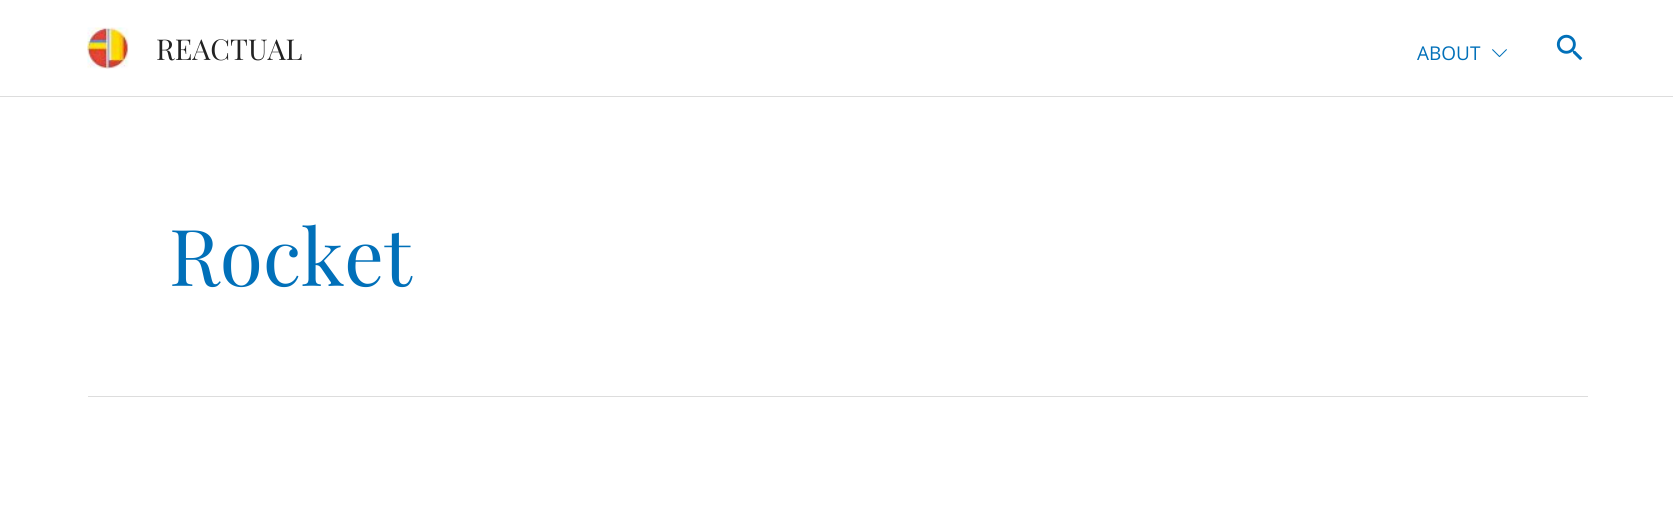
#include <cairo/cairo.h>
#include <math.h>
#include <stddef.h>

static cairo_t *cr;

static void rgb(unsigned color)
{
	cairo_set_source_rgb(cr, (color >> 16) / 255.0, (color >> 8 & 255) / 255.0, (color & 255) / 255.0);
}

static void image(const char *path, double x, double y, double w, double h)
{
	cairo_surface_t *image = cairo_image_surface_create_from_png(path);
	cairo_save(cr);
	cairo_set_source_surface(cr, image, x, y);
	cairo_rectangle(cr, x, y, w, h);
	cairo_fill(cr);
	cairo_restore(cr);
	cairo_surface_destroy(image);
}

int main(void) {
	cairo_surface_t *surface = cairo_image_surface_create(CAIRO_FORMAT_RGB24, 1673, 523);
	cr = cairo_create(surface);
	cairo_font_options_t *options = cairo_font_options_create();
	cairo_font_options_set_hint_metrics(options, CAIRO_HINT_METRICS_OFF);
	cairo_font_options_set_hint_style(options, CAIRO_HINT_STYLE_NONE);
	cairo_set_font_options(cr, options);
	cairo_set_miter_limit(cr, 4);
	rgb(0xffffff);
	cairo_paint(cr);
	rgb(0xdddddd);
	cairo_rectangle(cr, 0, 96, 1673, 1);
	cairo_fill(cr);
	image("img/1.png", 87, 27, 42, 42);
	image("img/2.png", 1492, 49, 15, 9);
	image("img/3.png", 1556, 34, 27, 27);
	cairo_rectangle(cr, 88, 396, 1500, 1);
	cairo_fill(cr);
	cairo_select_font_face(cr, "Playfair Display", CAIRO_FONT_SLANT_NORMAL, CAIRO_FONT_WEIGHT_NORMAL);
	cairo_set_font_size(cr, 28.75);
	rgb(0x222222);
	cairo_move_to(cr, 156, 60);
	cairo_show_text(cr, "REACTUAL");
	cairo_select_font_face(cr, "Open Sans", CAIRO_FONT_SLANT_NORMAL, CAIRO_FONT_WEIGHT_NORMAL);
	cairo_set_font_size(cr, 19);
	rgb(0x0170b9);
	cairo_move_to(cr, 1417, 60);
	cairo_show_text(cr, "ABOUT");
	cairo_select_font_face(cr, "Playfair Display", CAIRO_FONT_SLANT_NORMAL, CAIRO_FONT_WEIGHT_NORMAL);
	cairo_set_font_size(cr, 78.5);
	cairo_move_to(cr, 169, 286);
	cairo_show_text(cr, "Rocket");
	cairo_surface_write_to_png(surface, "page.png");
	cairo_font_options_destroy(options);
	cairo_destroy(cr);
	cairo_surface_destroy(surface);
	return 0;
}
